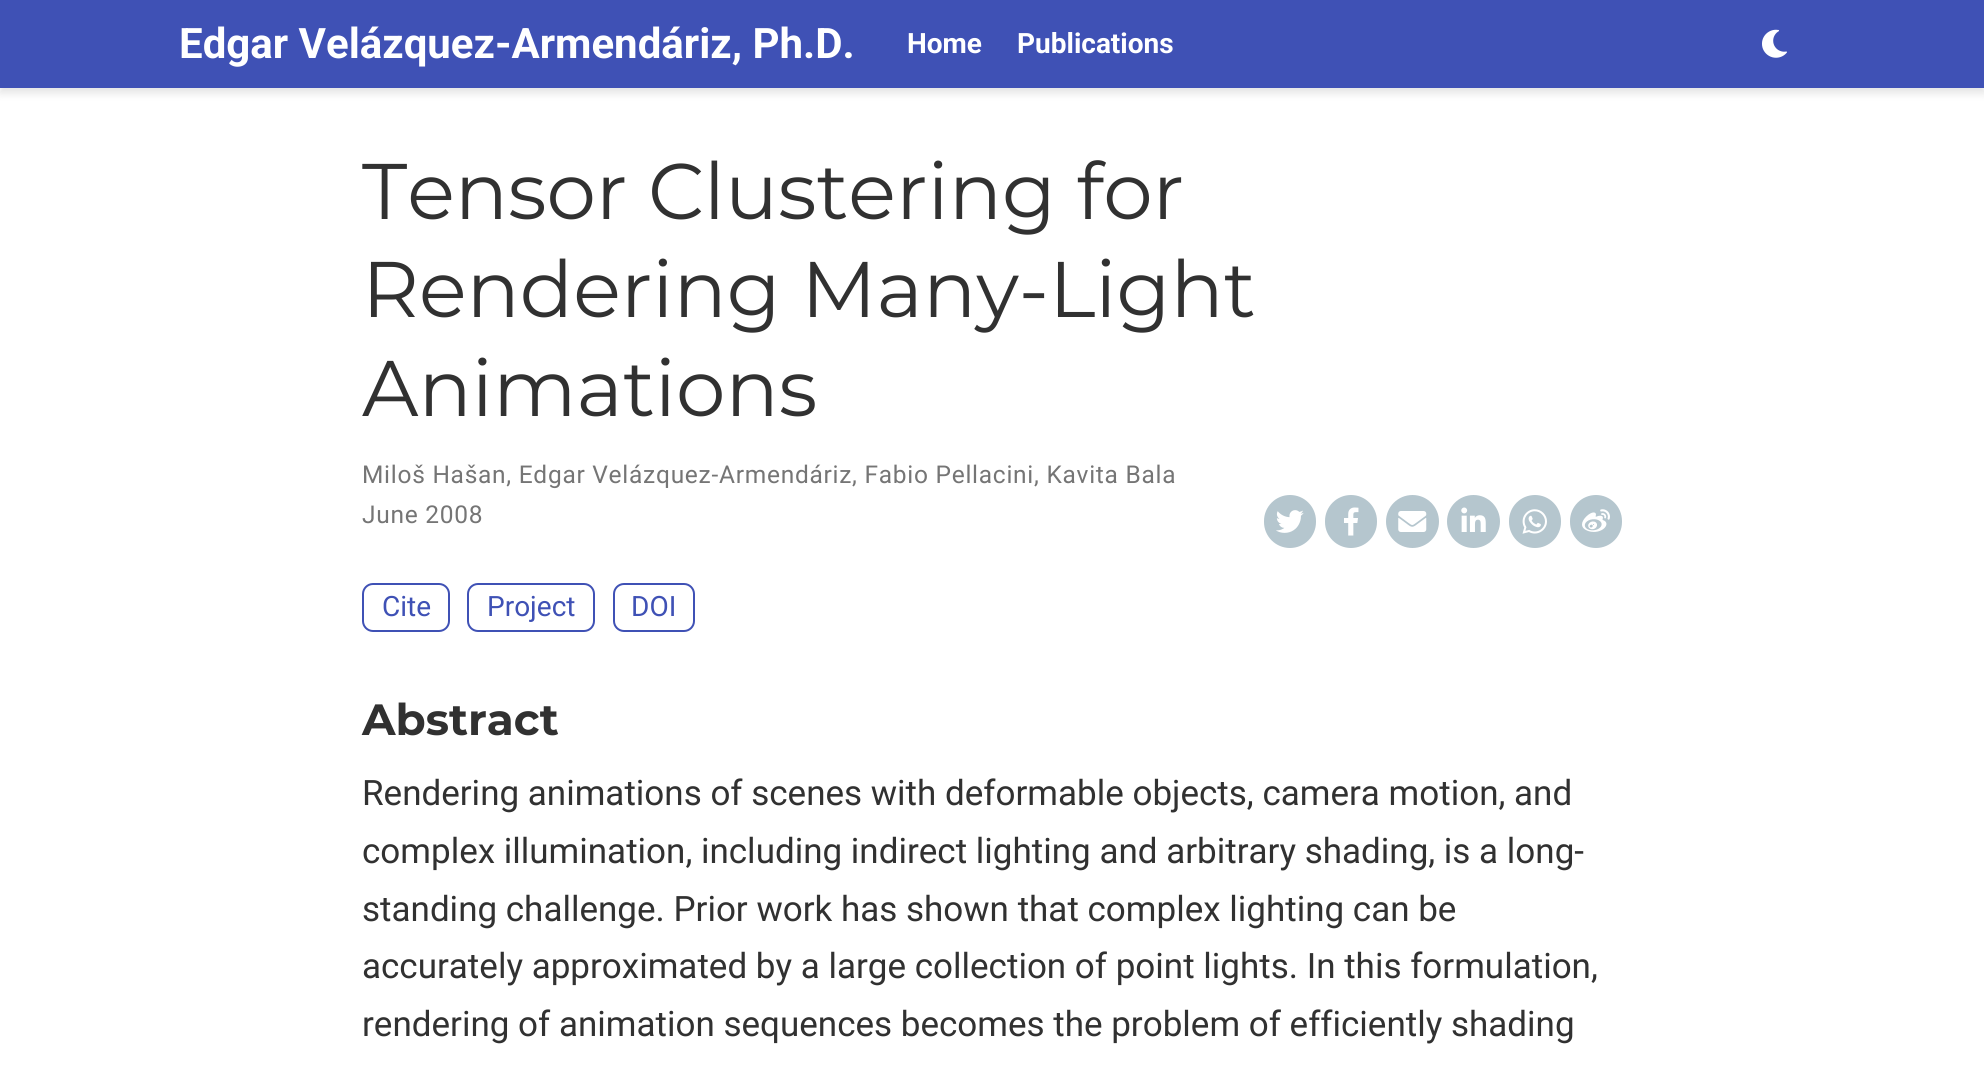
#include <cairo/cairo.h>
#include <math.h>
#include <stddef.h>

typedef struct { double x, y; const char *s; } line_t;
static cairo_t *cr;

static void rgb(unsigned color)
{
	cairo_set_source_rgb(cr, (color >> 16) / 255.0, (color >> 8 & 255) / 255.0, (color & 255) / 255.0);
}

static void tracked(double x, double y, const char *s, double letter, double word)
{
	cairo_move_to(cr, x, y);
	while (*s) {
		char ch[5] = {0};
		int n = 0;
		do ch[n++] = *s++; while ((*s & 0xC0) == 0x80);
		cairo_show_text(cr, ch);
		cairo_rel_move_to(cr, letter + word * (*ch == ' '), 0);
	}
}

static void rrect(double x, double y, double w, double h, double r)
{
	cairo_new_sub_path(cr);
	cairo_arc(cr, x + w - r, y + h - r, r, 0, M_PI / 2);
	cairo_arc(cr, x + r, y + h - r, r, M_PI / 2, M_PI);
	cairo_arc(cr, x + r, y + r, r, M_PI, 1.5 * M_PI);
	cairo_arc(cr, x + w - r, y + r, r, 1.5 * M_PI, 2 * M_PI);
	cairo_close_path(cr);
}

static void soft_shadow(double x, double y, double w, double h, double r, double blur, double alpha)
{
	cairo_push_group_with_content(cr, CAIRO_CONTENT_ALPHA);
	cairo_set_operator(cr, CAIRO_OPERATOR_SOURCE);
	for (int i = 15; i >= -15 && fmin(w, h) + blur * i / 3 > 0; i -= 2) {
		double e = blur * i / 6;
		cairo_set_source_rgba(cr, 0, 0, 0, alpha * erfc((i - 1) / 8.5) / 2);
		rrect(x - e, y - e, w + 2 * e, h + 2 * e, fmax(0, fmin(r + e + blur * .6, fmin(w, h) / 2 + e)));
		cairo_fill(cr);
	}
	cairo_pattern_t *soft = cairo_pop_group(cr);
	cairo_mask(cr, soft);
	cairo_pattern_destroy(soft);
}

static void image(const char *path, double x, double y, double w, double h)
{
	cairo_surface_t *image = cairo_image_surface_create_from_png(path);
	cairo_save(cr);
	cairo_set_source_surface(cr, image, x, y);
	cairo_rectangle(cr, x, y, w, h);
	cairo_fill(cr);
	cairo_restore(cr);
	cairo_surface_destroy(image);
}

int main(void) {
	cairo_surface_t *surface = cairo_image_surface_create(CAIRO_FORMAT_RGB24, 1984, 1069);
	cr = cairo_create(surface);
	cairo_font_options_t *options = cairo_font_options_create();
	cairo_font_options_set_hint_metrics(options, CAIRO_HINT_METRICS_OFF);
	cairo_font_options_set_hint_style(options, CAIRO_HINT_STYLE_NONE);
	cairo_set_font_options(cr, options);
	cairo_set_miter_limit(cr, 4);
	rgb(0xffffff);
	cairo_paint(cr);
	rgb(0x000000);
	soft_shadow(0, 5, 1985, 88, 0, 4.5, 0.11);
	rgb(0x3f51b5);
	cairo_rectangle(cr, 0, 0, 1984, 88);
	cairo_fill(cr);
	image("img/1.png", 1762, 29, 25, 29);
	rgb(0xb5c6ce);
	rrect(1264, 495, 52, 53, 26);
	cairo_fill(cr);
	image("img/2.png", 1276, 510, 28, 23);
	rrect(1325, 495, 52, 53, 26);
	cairo_fill(cr);
	image("img/3.png", 1344, 507, 15, 29);
	cairo_arc(cr, 1412.5, 521.5, 26.5, 0, 2 * M_PI);
	cairo_fill(cr);
	image("img/4.png", 1398, 511, 29, 21);
	cairo_arc(cr, 1473.5, 521.5, 26.5, 0, 2 * M_PI);
	cairo_fill(cr);
	image("img/5.png", 1461, 507, 25, 25);
	rrect(1509, 495, 52, 53, 26);
	cairo_fill(cr);
	image("img/6.png", 1522, 509, 25, 25);
	rrect(1570, 495, 52, 53, 26);
	cairo_fill(cr);
	image("img/7.png", 1582, 509, 28, 23);
	rrect(363, 584, 86, 47, 10);
	rgb(0x3f51b5);
	cairo_stroke(cr);
	rrect(468, 584, 126, 47, 10);
	cairo_stroke(cr);
	rrect(614, 584, 80, 47, 10);
	cairo_stroke(cr);
	cairo_select_font_face(cr, "Roboto", CAIRO_FONT_SLANT_NORMAL, CAIRO_FONT_WEIGHT_BOLD);
	cairo_set_font_size(cr, 42);
	rgb(0xffffff);
	cairo_move_to(cr, 179, 58);
	cairo_show_text(cr, "Edgar Velázquez-Armendáriz, Ph.D.");
	cairo_set_font_size(cr, 28);
	cairo_move_to(cr, 907, 53);
	cairo_show_text(cr, "Home");
	cairo_move_to(cr, 1017, 53);
	cairo_show_text(cr, "Publications");
	cairo_select_font_face(cr, "Montserrat", CAIRO_FONT_SLANT_NORMAL, CAIRO_FONT_WEIGHT_NORMAL);
	cairo_set_font_size(cr, 78.75);
	rgb(0x313131);
	{
		static const line_t items[] = {
			{362, 219, "Tensor Clustering for"},
			{362, 317, "Rendering Many-Light"},
			{362, 416, "Animations"},
		};
		for (size_t i = 0; i < sizeof items / sizeof *items; i++) {
			cairo_move_to(cr, items[i].x, items[i].y);
			cairo_show_text(cr, items[i].s);
		}
	}
	cairo_select_font_face(cr, "Roboto", CAIRO_FONT_SLANT_NORMAL, CAIRO_FONT_WEIGHT_NORMAL);
	cairo_set_font_size(cr, 24.5);
	rgb(0x757575);
	tracked(362, 483, "Miloš Hašan, Edgar Velázquez-Armendáriz, Fabio Pellacini, Kavita Bala", 0.73, 0);
	tracked(362, 523, "June 2008", 0.73, 0);
	cairo_set_font_size(cr, 28);
	rgb(0x3f51b5);
	{
		static const line_t items[] = {
			{382, 616, "Cite"},
			{487, 616, "Project"},
			{631, 616, "DOI"},
		};
		for (size_t i = 0; i < sizeof items / sizeof *items; i++) {
			cairo_move_to(cr, items[i].x, items[i].y);
			cairo_show_text(cr, items[i].s);
		}
	}
	cairo_select_font_face(cr, "Montserrat", CAIRO_FONT_SLANT_NORMAL, CAIRO_FONT_WEIGHT_BOLD);
	cairo_set_font_size(cr, 43.75);
	rgb(0x313131);
	cairo_move_to(cr, 362, 735);
	cairo_show_text(cr, "Abstract");
	cairo_select_font_face(cr, "Roboto", CAIRO_FONT_SLANT_NORMAL, CAIRO_FONT_WEIGHT_NORMAL);
	cairo_set_font_size(cr, 35);
	{
		static const line_t items[] = {
			{362, 805, "Rendering animations of scenes with deformable objects, camera motion, and"},
			{362, 863, "complex illumination, including indirect lighting and arbitrary shading, is a long-"},
			{362, 921, "standing challenge. Prior work has shown that complex lighting can be"},
			{362, 978, "accurately approximated by a large collection of point lights. In this formulation,"},
			{362, 1036, "rendering of animation sequences becomes the problem of efficiently shading"},
		};
		for (size_t i = 0; i < sizeof items / sizeof *items; i++) {
			cairo_move_to(cr, items[i].x, items[i].y);
			cairo_show_text(cr, items[i].s);
		}
	}
	cairo_surface_write_to_png(surface, "page.png");
	cairo_font_options_destroy(options);
	cairo_destroy(cr);
	cairo_surface_destroy(surface);
	return 0;
}
